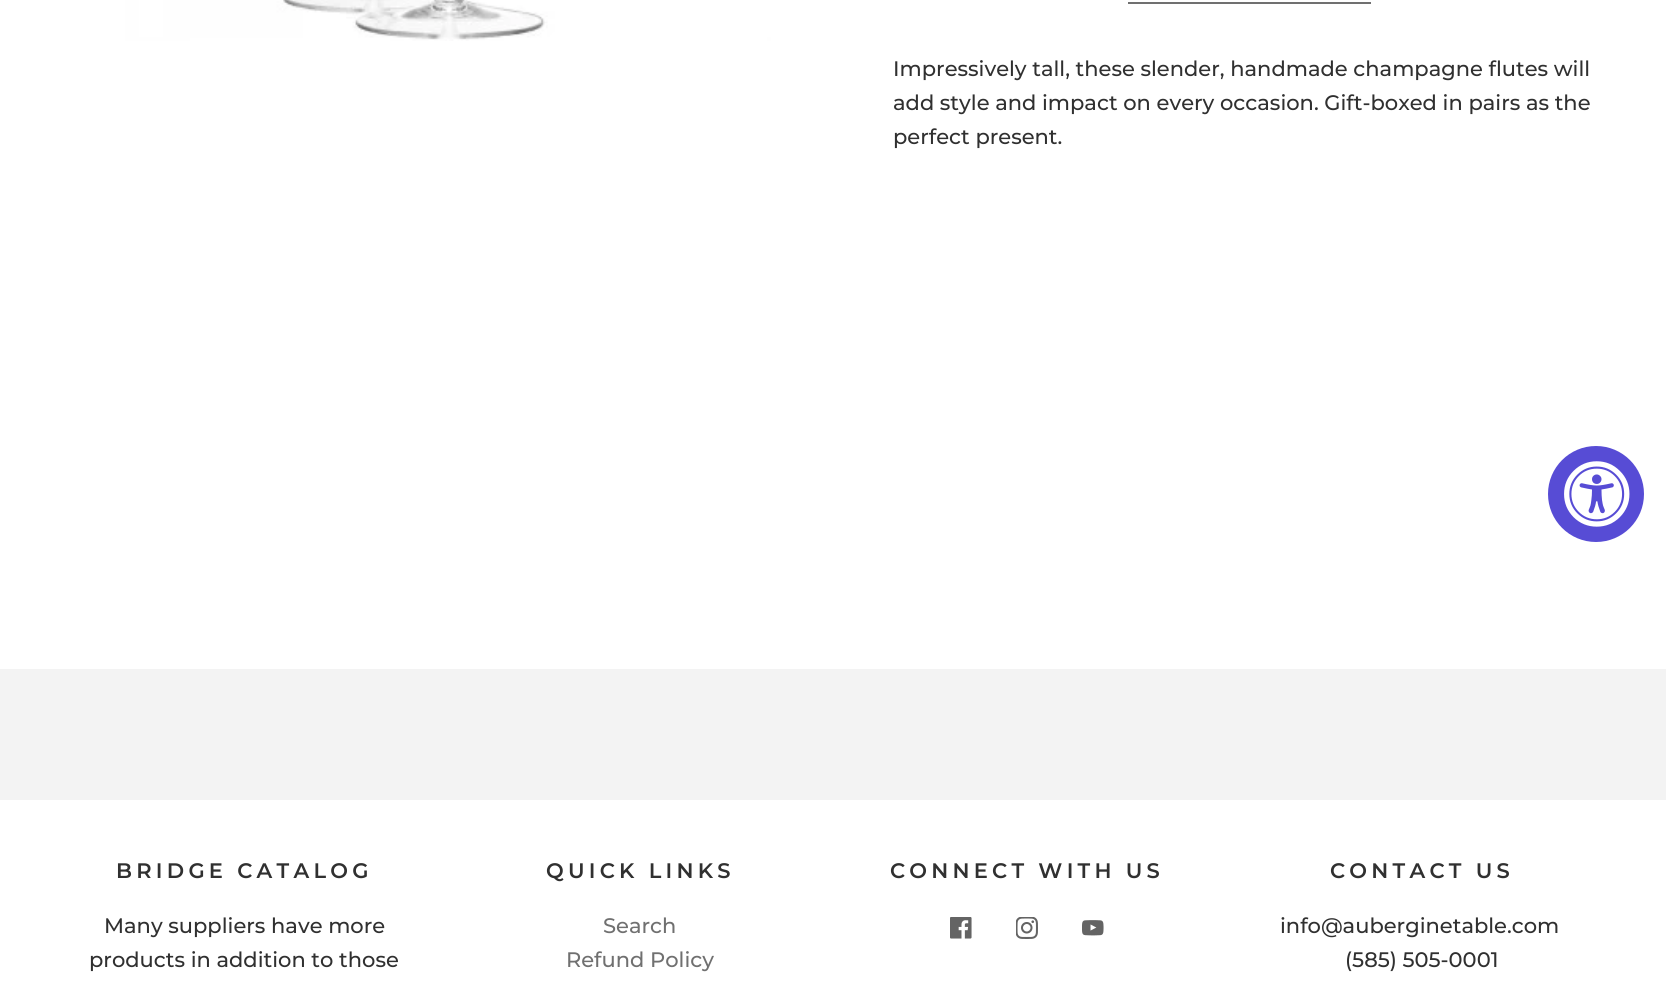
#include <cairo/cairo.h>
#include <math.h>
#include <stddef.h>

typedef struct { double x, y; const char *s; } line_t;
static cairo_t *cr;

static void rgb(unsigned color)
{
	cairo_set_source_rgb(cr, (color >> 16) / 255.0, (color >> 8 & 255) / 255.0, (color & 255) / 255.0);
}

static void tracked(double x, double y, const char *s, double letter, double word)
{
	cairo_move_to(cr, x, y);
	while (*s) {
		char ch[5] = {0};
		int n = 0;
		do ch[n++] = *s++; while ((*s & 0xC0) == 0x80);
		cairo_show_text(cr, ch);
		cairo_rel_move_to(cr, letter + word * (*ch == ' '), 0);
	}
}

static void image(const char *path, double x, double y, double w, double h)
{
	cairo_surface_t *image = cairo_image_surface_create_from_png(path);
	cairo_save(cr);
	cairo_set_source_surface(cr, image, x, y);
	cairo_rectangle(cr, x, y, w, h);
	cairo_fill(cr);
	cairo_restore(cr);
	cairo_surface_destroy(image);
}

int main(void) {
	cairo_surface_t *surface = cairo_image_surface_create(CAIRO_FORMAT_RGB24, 1666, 987);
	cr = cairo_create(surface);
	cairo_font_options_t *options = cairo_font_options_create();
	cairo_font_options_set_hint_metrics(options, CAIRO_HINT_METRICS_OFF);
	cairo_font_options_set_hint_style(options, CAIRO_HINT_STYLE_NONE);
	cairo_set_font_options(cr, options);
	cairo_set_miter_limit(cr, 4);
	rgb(0xffffff);
	cairo_paint(cr);
	image("img/1.png", 63, 0, 708, 41);
	rgb(0x707070);
	cairo_rectangle(cr, 1128, 2, 243, 2);
	cairo_fill(cr);
	rgb(0xf3f3f3);
	cairo_rectangle(cr, 0, 669, 1666, 131);
	cairo_fill(cr);
	image("img/2.png", 950, 917, 22, 22);
	image("img/3.png", 1016, 917, 22, 22);
	image("img/4.png", 1082, 920, 22, 16);
	rgb(0x574cd5);
	cairo_arc(cr, 1596, 494, 48, 0, 2 * M_PI);
	cairo_fill(cr);
	image("img/5.png", 1564, 461, 66, 66);
	cairo_select_font_face(cr, "Montserrat Medium", CAIRO_FONT_SLANT_NORMAL, CAIRO_FONT_WEIGHT_NORMAL);
	cairo_set_font_size(cr, 21);
	rgb(0x303030);
	{
		static const line_t items[] = {
			{893, 76, "Impressively tall, these slender, handmade champagne flutes will"},
			{893, 110, "add style and impact on every occasion. Gift-boxed in pairs as the"},
			{893, 144, "perfect present."},
		};
		for (size_t i = 0; i < sizeof items / sizeof *items; i++) {
			cairo_move_to(cr, items[i].x, items[i].y);
			cairo_show_text(cr, items[i].s);
		}
	}
	cairo_select_font_face(cr, "Montserrat SemiBold", CAIRO_FONT_SLANT_NORMAL, CAIRO_FONT_WEIGHT_NORMAL);
	tracked(116, 878, "BRIDGE CATALOG", 4.25, 0);
	cairo_select_font_face(cr, "Montserrat Medium", CAIRO_FONT_SLANT_NORMAL, CAIRO_FONT_WEIGHT_NORMAL);
	cairo_move_to(cr, 104, 933);
	cairo_show_text(cr, "Many suppliers have more");
	cairo_move_to(cr, 89, 967);
	cairo_show_text(cr, "products in addition to those");
	cairo_select_font_face(cr, "Montserrat SemiBold", CAIRO_FONT_SLANT_NORMAL, CAIRO_FONT_WEIGHT_NORMAL);
	tracked(546, 878, "QUICK LINKS", 4.25, 0);
	cairo_select_font_face(cr, "Montserrat Medium", CAIRO_FONT_SLANT_NORMAL, CAIRO_FONT_WEIGHT_NORMAL);
	rgb(0x707070);
	cairo_move_to(cr, 603, 933);
	cairo_show_text(cr, "Search");
	cairo_move_to(cr, 566, 967);
	cairo_show_text(cr, "Refund Policy");
	cairo_select_font_face(cr, "Montserrat SemiBold", CAIRO_FONT_SLANT_NORMAL, CAIRO_FONT_WEIGHT_NORMAL);
	rgb(0x303030);
	tracked(890, 878, "CONNECT WITH US", 4.25, 0);
	tracked(1330, 878, "CONTACT US", 4.25, 0);
	cairo_select_font_face(cr, "Montserrat Medium", CAIRO_FONT_SLANT_NORMAL, CAIRO_FONT_WEIGHT_NORMAL);
	cairo_move_to(cr, 1280, 933);
	cairo_show_text(cr, "info@auberginetable.com");
	cairo_move_to(cr, 1345, 967);
	cairo_show_text(cr, "(585) 505-0001");
	cairo_surface_write_to_png(surface, "page.png");
	cairo_font_options_destroy(options);
	cairo_destroy(cr);
	cairo_surface_destroy(surface);
	return 0;
}
